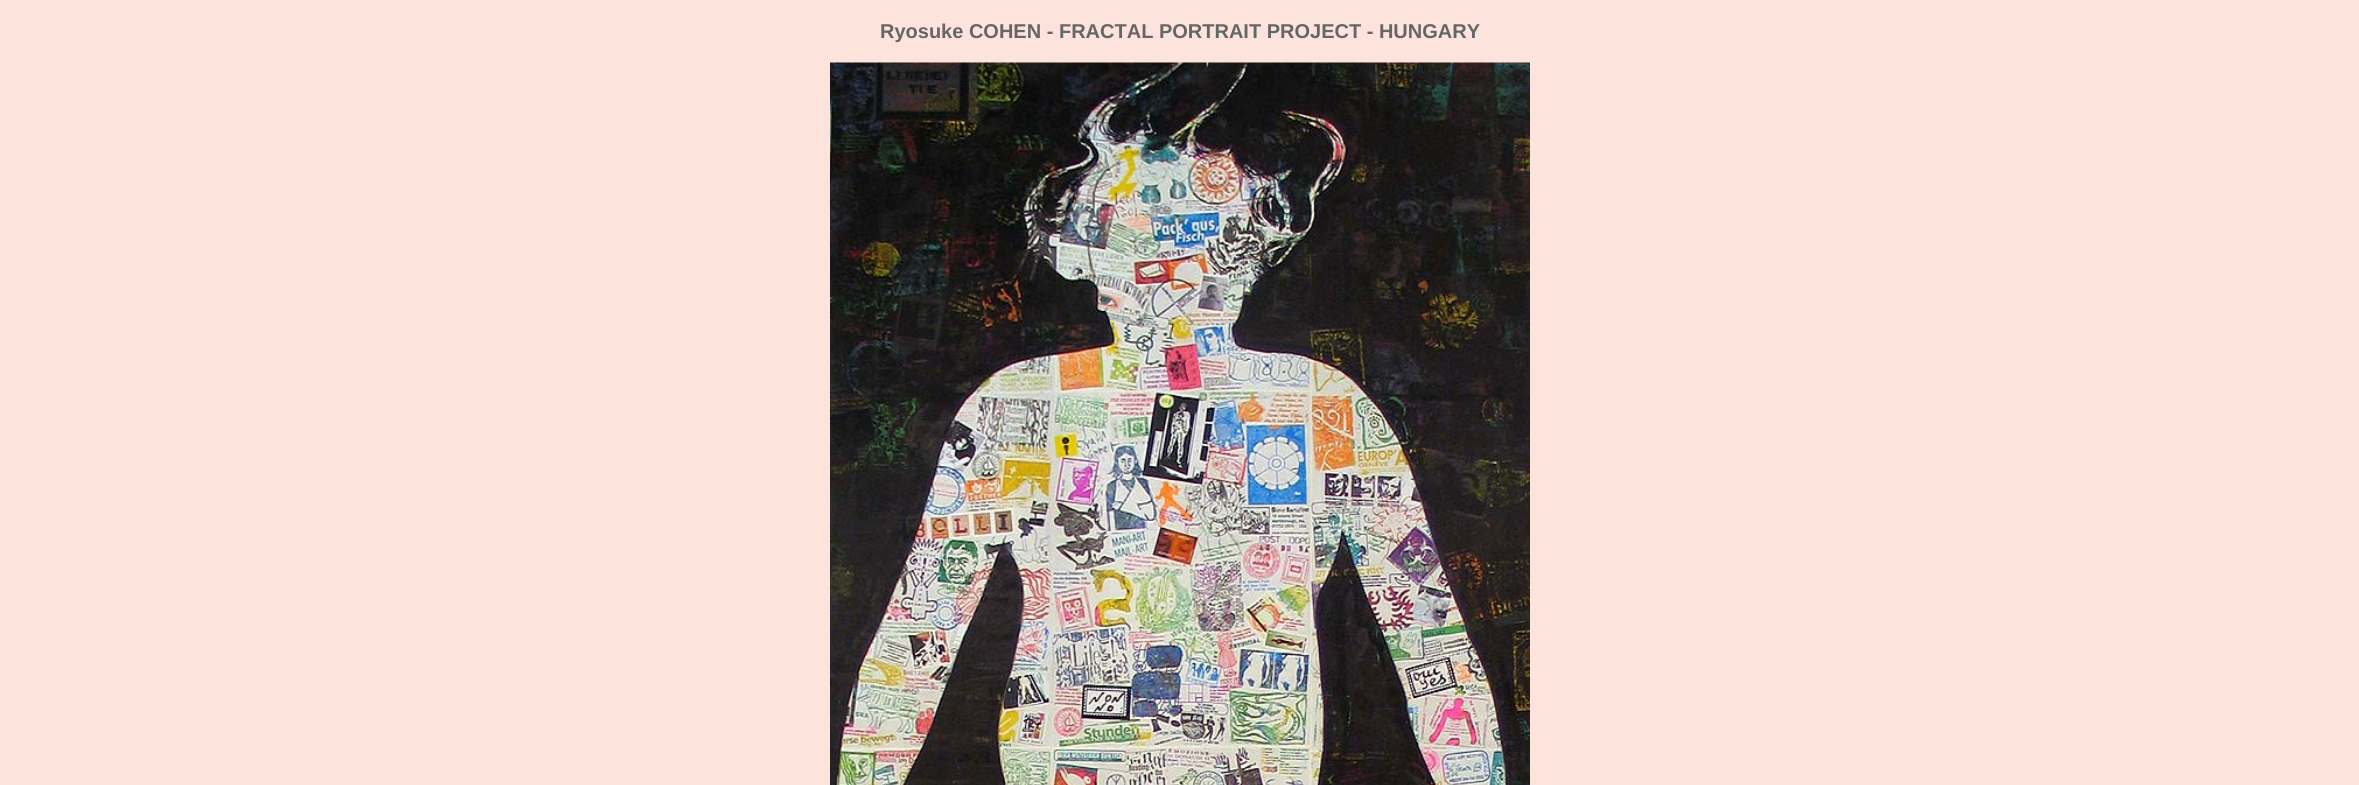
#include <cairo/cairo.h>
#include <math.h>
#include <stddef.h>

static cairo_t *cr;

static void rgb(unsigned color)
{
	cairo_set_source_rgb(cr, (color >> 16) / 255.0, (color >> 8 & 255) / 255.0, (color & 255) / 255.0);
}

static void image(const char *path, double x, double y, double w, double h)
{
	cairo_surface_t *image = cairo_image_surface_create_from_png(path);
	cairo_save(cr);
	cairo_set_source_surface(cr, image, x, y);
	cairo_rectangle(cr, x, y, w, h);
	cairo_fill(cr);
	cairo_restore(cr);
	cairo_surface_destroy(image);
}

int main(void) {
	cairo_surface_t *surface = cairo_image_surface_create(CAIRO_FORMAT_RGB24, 2359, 785);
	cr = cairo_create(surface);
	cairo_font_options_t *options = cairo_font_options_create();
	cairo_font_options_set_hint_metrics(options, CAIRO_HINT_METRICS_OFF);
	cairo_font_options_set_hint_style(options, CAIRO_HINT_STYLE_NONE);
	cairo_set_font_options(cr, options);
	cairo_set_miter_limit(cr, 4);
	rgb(0xfce4dc);
	cairo_paint(cr);
	image("img/1.png", 830, 62, 700, 723);
	cairo_select_font_face(cr, "Liberation Sans", CAIRO_FONT_SLANT_NORMAL, CAIRO_FONT_WEIGHT_BOLD);
	cairo_set_font_size(cr, 20);
	rgb(0x666666);
	cairo_move_to(cr, 880, 38);
	cairo_show_text(cr, "Ryosuke COHEN - FRACTAL PORTRAIT PROJECT - HUNGARY");
	cairo_surface_write_to_png(surface, "page.png");
	cairo_font_options_destroy(options);
	cairo_destroy(cr);
	cairo_surface_destroy(surface);
	return 0;
}
